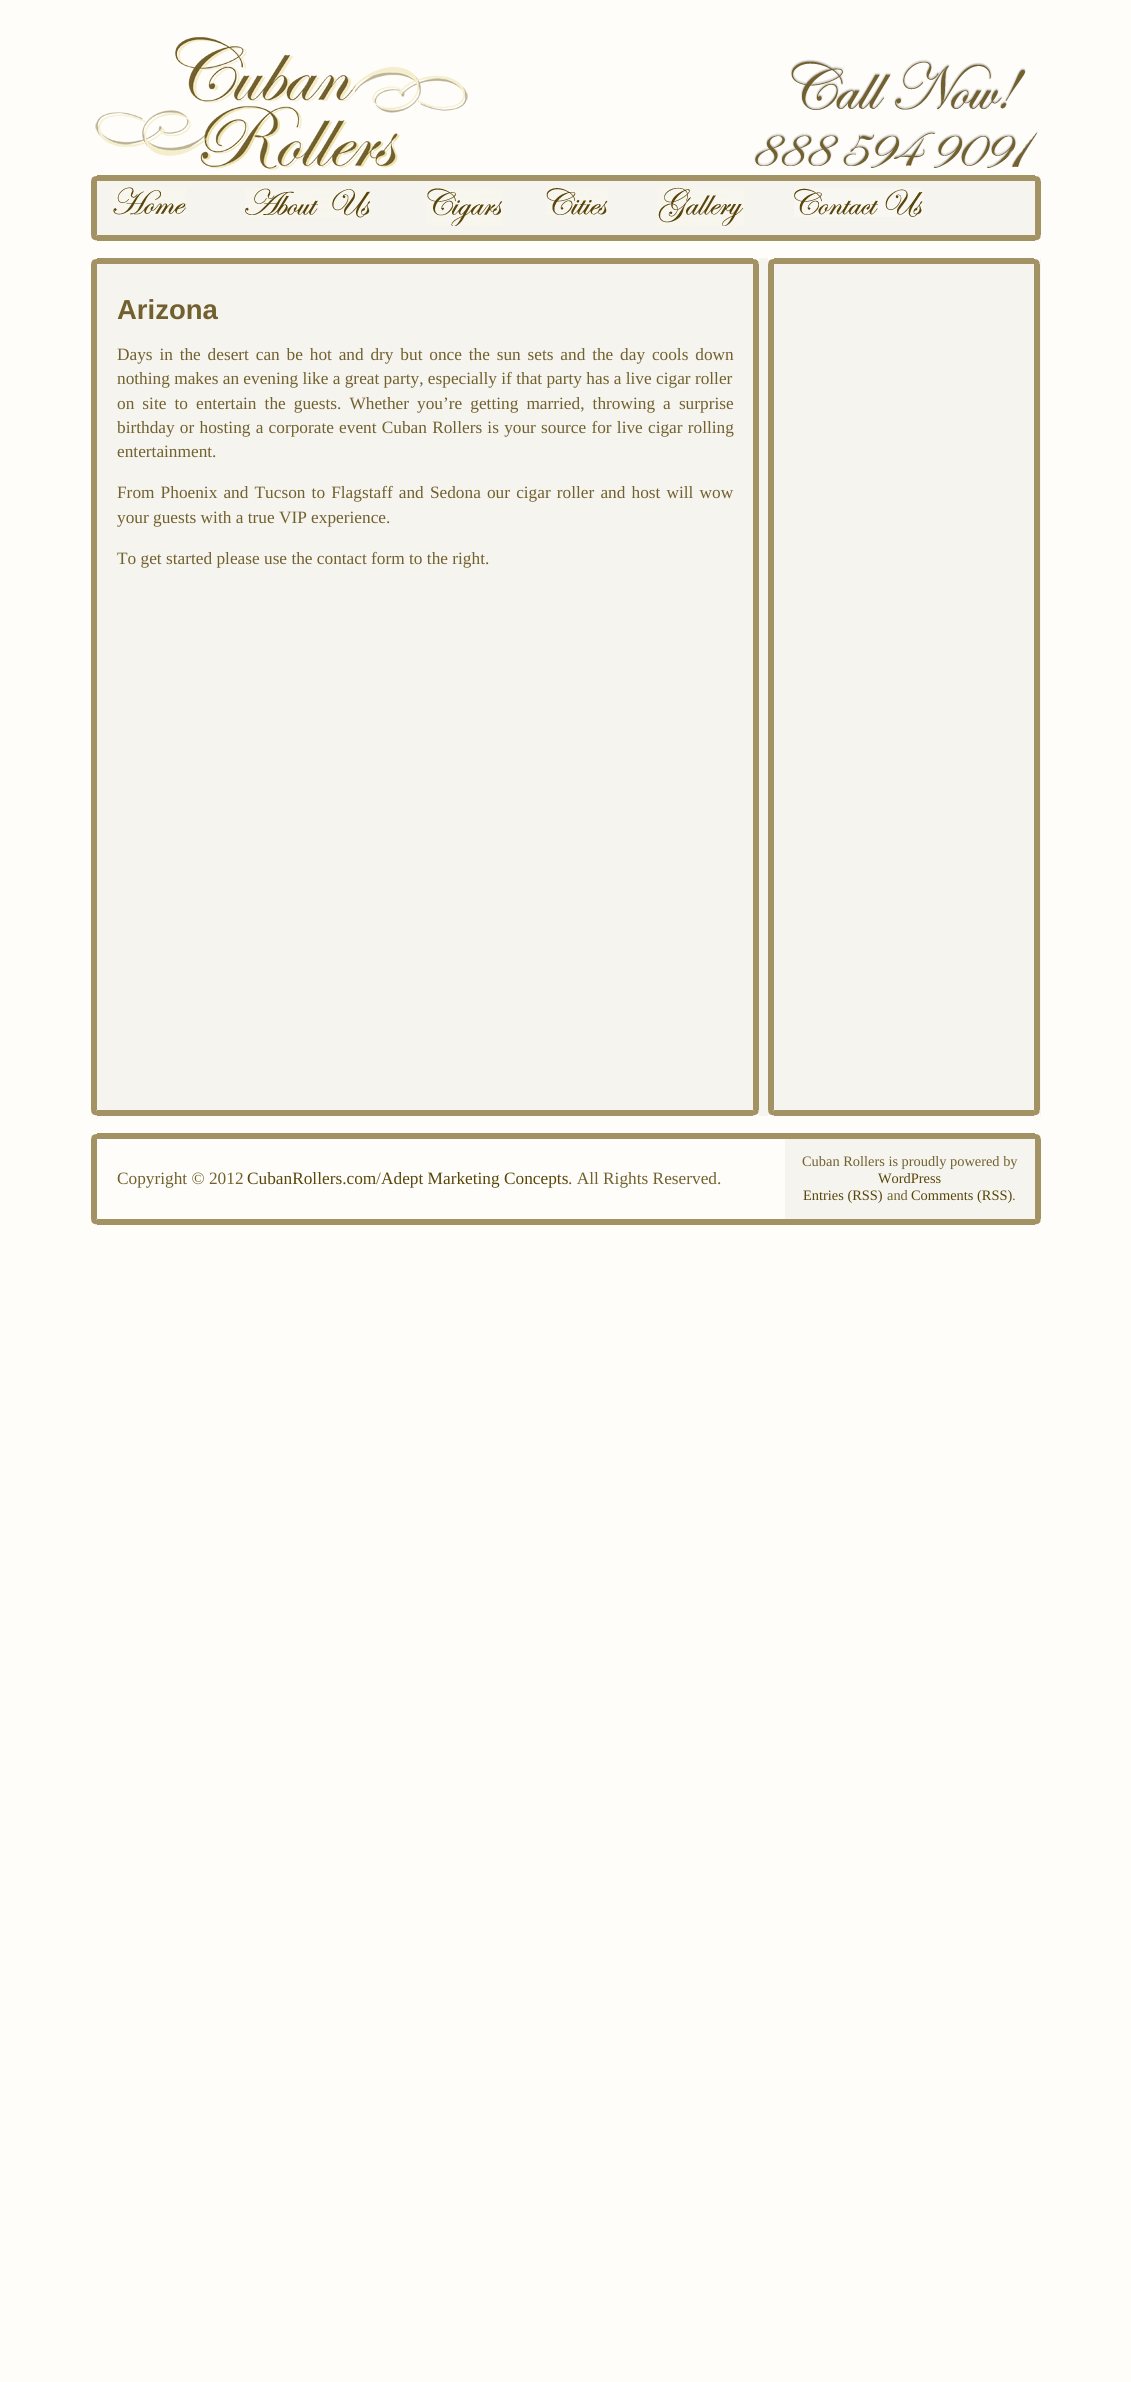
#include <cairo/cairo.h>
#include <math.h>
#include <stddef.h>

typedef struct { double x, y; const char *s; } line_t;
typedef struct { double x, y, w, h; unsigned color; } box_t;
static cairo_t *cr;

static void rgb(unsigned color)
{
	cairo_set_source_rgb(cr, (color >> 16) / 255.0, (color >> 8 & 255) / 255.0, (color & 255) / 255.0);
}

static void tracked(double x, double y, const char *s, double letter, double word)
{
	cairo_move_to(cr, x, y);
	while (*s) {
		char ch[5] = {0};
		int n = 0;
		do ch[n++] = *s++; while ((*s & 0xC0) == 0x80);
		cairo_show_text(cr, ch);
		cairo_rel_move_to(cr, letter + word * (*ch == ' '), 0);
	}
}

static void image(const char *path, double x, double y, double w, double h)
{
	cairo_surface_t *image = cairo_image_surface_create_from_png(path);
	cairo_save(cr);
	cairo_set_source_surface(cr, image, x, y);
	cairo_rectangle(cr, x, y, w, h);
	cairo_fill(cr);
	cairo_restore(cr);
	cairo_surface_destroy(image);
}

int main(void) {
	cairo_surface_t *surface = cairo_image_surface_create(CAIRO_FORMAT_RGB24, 1131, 2382);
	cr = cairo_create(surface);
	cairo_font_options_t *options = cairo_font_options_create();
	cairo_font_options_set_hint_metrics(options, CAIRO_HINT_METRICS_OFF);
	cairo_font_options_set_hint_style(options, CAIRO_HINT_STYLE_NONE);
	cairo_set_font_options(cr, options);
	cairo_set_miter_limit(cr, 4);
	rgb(0xfefdf9);
	cairo_paint(cr);
	image("img/1.png", 95, 37, 373, 133);
	image("img/2.png", 754, 59, 284, 109);
	rgb(0xf5f4ef);
	cairo_rectangle(cr, 97, 181, 938, 54);
	cairo_fill(cr);
	image("img/3.png", 91, 175, 6, 6);
	rgb(0xa39264);
	cairo_rectangle(cr, 97, 175, 938, 6);
	cairo_fill(cr);
	image("img/4.png", 1035, 175, 6, 6);
	cairo_rectangle(cr, 91, 181, 6, 54);
	cairo_fill(cr);
	image("img/5.png", 113, 187, 73, 28);
	image("img/6.png", 245, 188, 125, 30);
	image("img/7.png", 427, 188, 75, 38);
	image("img/8.png", 546, 188, 62, 27);
	image("img/9.png", 658, 187, 86, 39);
	image("img/10.png", 794, 188, 129, 29);
	cairo_rectangle(cr, 1035, 181, 6, 54);
	cairo_fill(cr);
	image("img/11.png", 91, 235, 6, 6);
	cairo_rectangle(cr, 97, 235, 938, 6);
	cairo_fill(cr);
	image("img/12.png", 1035, 235, 6, 6);
	rgb(0xf5f4ef);
	cairo_rectangle(cr, 97, 258, 944, 858);
	cairo_fill(cr);
	image("img/3.png", 91, 258, 6, 6);
	rgb(0xa39264);
	cairo_rectangle(cr, 97, 258, 656, 6);
	cairo_fill(cr);
	image("img/4.png", 753, 258, 6, 6);
	image("img/3.png", 768, 258, 6, 6);
	cairo_rectangle(cr, 774, 258, 260, 6);
	cairo_fill(cr);
	image("img/4.png", 1034, 258, 6, 6);
	{
		static const box_t items[] = {
			{91, 264, 6, 846, 0xa39264},
			{753, 264, 6, 846, 0xa39264},
			{768, 264, 6, 846, 0xa39264},
			{1034, 264, 6, 846, 0xa39264},
		};
		for (size_t i = 0; i < sizeof items / sizeof *items; i++) {
			rgb(items[i].color);
			cairo_rectangle(cr, items[i].x, items[i].y, items[i].w, items[i].h);
			cairo_fill(cr);
		}
	}
	image("img/11.png", 91, 1110, 6, 6);
	cairo_rectangle(cr, 97, 1110, 656, 6);
	cairo_fill(cr);
	image("img/12.png", 753, 1110, 6, 6);
	image("img/11.png", 768, 1110, 6, 6);
	cairo_rectangle(cr, 774, 1110, 260, 6);
	cairo_fill(cr);
	image("img/12.png", 1034, 1110, 6, 6);
	rgb(0xf5f4ef);
	cairo_rectangle(cr, 785, 1139, 250, 80);
	cairo_fill(cr);
	image("img/3.png", 91, 1133, 6, 6);
	rgb(0xa39264);
	cairo_rectangle(cr, 97, 1133, 938, 6);
	cairo_fill(cr);
	image("img/4.png", 1035, 1133, 6, 6);
	cairo_rectangle(cr, 91, 1139, 6, 80);
	cairo_fill(cr);
	cairo_rectangle(cr, 1035, 1139, 6, 80);
	cairo_fill(cr);
	image("img/11.png", 91, 1219, 6, 6);
	cairo_rectangle(cr, 97, 1219, 938, 6);
	cairo_fill(cr);
	image("img/12.png", 1035, 1219, 6, 6);
	cairo_select_font_face(cr, "Liberation Sans", CAIRO_FONT_SLANT_NORMAL, CAIRO_FONT_WEIGHT_BOLD);
	cairo_set_font_size(cr, 27.5);
	rgb(0x72602e);
	cairo_move_to(cr, 117, 319);
	cairo_show_text(cr, "Arizona");
	cairo_select_font_face(cr, "Liberation Serif", CAIRO_FONT_SLANT_NORMAL, CAIRO_FONT_WEIGHT_NORMAL);
	cairo_set_font_size(cr, 17.3);
	tracked(117, 360, "Days in the desert can be hot and dry but once the sun sets and the day cools down", 0, 2.5);
	cairo_move_to(cr, 117, 384);
	cairo_show_text(cr, "nothing makes an evening like a great party, especially if that party has a live cigar roller");
	tracked(117, 409, "on site to entertain the guests. Whether you’re getting married, throwing a surprise", 0, 3.75);
	tracked(117, 433, "birthday or hosting a corporate event Cuban Rollers is your source for live cigar rolling", 0, 0.9);
	cairo_move_to(cr, 117, 457);
	cairo_show_text(cr, "entertainment.");
	tracked(117, 498, "From Phoenix and Tucson to Flagstaff and Sedona our cigar roller and host will wow", 0, 1.8);
	{
		static const line_t items[] = {
			{117, 523, "your guests with a true VIP experience."},
			{117, 564, "To get started please use the contact form to the right."},
			{117, 1184, "Copyright © 2012"},
		};
		for (size_t i = 0; i < sizeof items / sizeof *items; i++) {
			cairo_move_to(cr, items[i].x, items[i].y);
			cairo_show_text(cr, items[i].s);
		}
	}
	rgb(0x59450a);
	cairo_move_to(cr, 247, 1184);
	cairo_show_text(cr, "CubanRollers.com");
	rgb(0x72602e);
	cairo_move_to(cr, 376, 1184);
	cairo_show_text(cr, "/");
	rgb(0x59450a);
	cairo_move_to(cr, 381, 1184);
	cairo_show_text(cr, "Adept Marketing Concepts");
	rgb(0x72602e);
	cairo_move_to(cr, 568, 1184);
	cairo_show_text(cr, ". All Rights Reserved.");
	cairo_set_font_size(cr, 14.4);
	cairo_move_to(cr, 802, 1166);
	cairo_show_text(cr, "Cuban Rollers is proudly powered by");
	rgb(0x59450a);
	cairo_move_to(cr, 878, 1183);
	cairo_show_text(cr, "WordPress");
	cairo_move_to(cr, 803, 1200);
	cairo_show_text(cr, "Entries (RSS)");
	rgb(0x72602e);
	cairo_move_to(cr, 887, 1200);
	cairo_show_text(cr, "and");
	rgb(0x59450a);
	cairo_move_to(cr, 911, 1200);
	cairo_show_text(cr, "Comments (RSS)");
	rgb(0x72602e);
	cairo_move_to(cr, 1012, 1200);
	cairo_show_text(cr, ".");
	cairo_surface_write_to_png(surface, "page.png");
	cairo_font_options_destroy(options);
	cairo_destroy(cr);
	cairo_surface_destroy(surface);
	return 0;
}
